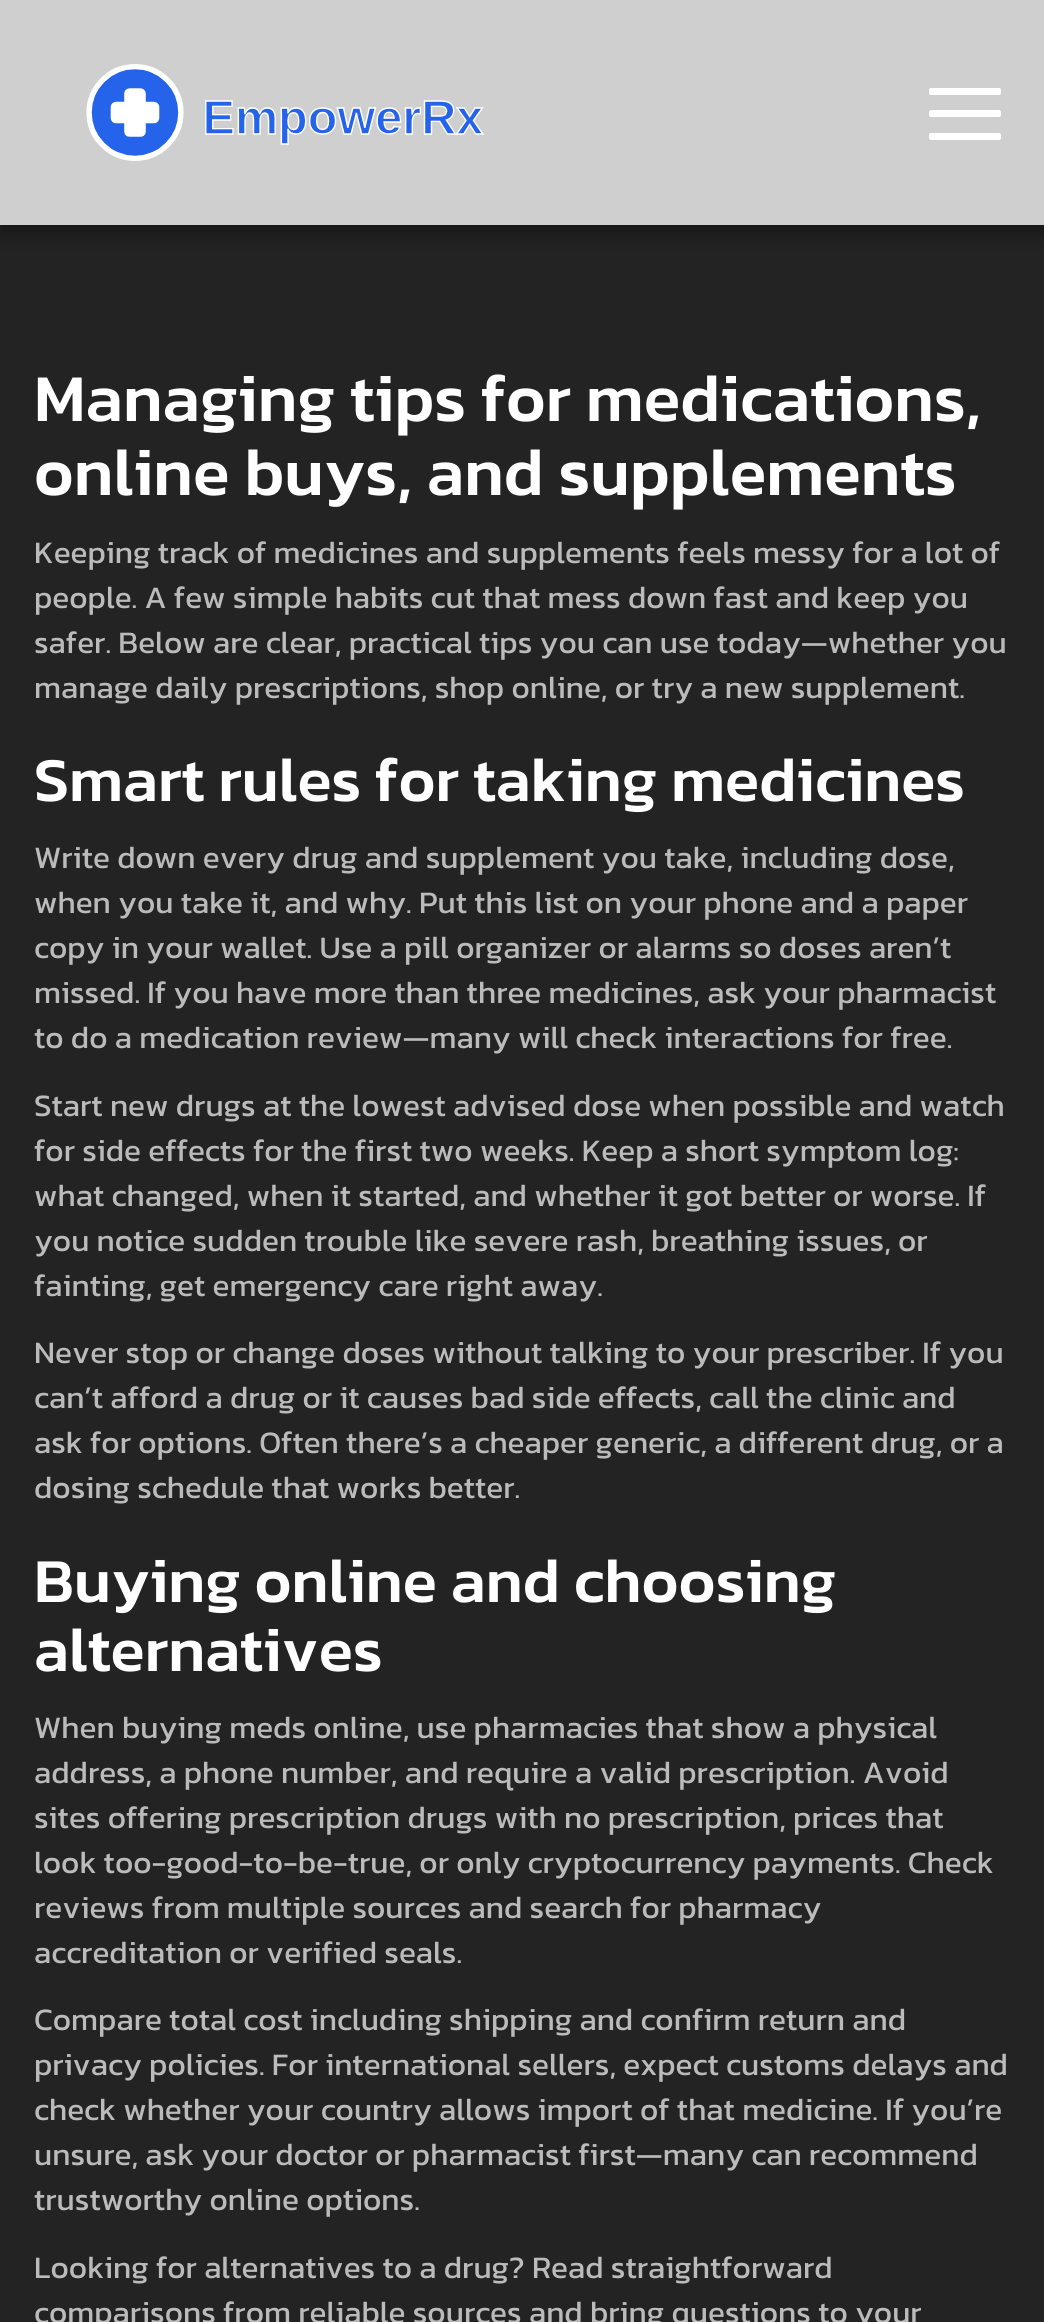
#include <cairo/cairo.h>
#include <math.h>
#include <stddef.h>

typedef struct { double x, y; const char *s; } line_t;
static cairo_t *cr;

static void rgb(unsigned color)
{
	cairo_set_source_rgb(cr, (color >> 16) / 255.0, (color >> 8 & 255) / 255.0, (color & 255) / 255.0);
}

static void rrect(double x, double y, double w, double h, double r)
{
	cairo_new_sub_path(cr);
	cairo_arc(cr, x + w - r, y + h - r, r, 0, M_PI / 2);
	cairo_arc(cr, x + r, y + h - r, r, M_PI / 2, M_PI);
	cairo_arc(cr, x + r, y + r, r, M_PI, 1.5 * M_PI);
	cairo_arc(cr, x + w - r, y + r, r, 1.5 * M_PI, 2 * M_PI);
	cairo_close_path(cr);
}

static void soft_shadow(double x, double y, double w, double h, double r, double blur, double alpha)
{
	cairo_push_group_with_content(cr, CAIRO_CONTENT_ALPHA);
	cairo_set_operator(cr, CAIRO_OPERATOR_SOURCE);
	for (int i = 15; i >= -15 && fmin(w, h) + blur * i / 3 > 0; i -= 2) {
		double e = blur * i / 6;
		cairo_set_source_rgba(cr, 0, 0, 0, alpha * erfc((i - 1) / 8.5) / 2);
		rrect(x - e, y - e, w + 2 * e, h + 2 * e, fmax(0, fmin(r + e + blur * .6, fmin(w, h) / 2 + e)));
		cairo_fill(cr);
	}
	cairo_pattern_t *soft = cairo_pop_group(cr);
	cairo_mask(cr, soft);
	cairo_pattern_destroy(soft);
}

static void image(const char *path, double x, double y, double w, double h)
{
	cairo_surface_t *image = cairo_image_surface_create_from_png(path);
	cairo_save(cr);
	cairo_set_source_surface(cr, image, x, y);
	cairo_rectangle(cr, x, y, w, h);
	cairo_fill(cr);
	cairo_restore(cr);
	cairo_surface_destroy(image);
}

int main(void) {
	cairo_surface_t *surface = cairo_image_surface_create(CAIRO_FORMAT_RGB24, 1044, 2322);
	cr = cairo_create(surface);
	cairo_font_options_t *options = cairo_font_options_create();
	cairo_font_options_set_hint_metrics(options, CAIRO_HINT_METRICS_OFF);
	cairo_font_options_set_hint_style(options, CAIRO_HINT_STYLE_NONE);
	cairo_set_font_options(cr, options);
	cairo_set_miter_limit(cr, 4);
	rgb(0x232323);
	cairo_paint(cr);
	rgb(0x000000);
	soft_shadow(0, 5, 1044, 225, 0, 11, 0.5);
	rgb(0xcfcfcf);
	cairo_rectangle(cr, 0, 0, 1044, 225);
	cairo_fill(cr);
	image("img/1.png", 86, 64, 398, 97);
	rgb(0xffffff);
	rrect(929, 88, 72, 7, 2);
	cairo_fill(cr);
	rrect(929, 110, 72, 7, 2);
	cairo_fill(cr);
	rrect(929, 133, 72, 7, 2);
	cairo_fill(cr);
	cairo_select_font_face(cr, "Kanit Medium", CAIRO_FONT_SLANT_NORMAL, CAIRO_FONT_WEIGHT_NORMAL);
	cairo_set_font_size(cr, 67.5);
	cairo_move_to(cr, 34, 421);
	cairo_show_text(cr, "Managing tips for medications,");
	cairo_move_to(cr, 34, 495);
	cairo_show_text(cr, "online buys, and supplements");
	cairo_select_font_face(cr, "Kanit", CAIRO_FONT_SLANT_NORMAL, CAIRO_FONT_WEIGHT_NORMAL);
	cairo_set_font_size(cr, 31.5);
	rgb(0xbbbbbb);
	{
		static const line_t items[] = {
			{34, 563, "Keeping track of medicines and supplements feels messy for a lot of"},
			{34, 608, "people. A few simple habits cut that mess down fast and keep you"},
			{34, 653, "safer. Below are clear, practical tips you can use today—whether you"},
			{34, 698, "manage daily prescriptions, shop online, or try a new supplement."},
		};
		for (size_t i = 0; i < sizeof items / sizeof *items; i++) {
			cairo_move_to(cr, items[i].x, items[i].y);
			cairo_show_text(cr, items[i].s);
		}
	}
	cairo_select_font_face(cr, "Kanit Medium", CAIRO_FONT_SLANT_NORMAL, CAIRO_FONT_WEIGHT_NORMAL);
	cairo_set_font_size(cr, 63);
	rgb(0xffffff);
	cairo_move_to(cr, 34, 801);
	cairo_show_text(cr, "Smart rules for taking medicines");
	cairo_select_font_face(cr, "Kanit", CAIRO_FONT_SLANT_NORMAL, CAIRO_FONT_WEIGHT_NORMAL);
	cairo_set_font_size(cr, 31.5);
	rgb(0xbbbbbb);
	{
		static const line_t items[] = {
			{34, 868, "Write down every drug and supplement you take, including dose,"},
			{34, 913, "when you take it, and why. Put this list on your phone and a paper"},
			{34, 958, "copy in your wallet. Use a pill organizer or alarms so doses aren’t"},
			{34, 1003, "missed. If you have more than three medicines, ask your pharmacist"},
			{34, 1048, "to do a medication review—many will check interactions for free."},
			{34, 1116, "Start new drugs at the lowest advised dose when possible and watch"},
			{34, 1161, "for side effects for the first two weeks. Keep a short symptom log:"},
			{34, 1206, "what changed, when it started, and whether it got better or worse. If"},
			{34, 1251, "you notice sudden trouble like severe rash, breathing issues, or"},
			{34, 1296, "fainting, get emergency care right away."},
			{34, 1363, "Never stop or change doses without talking to your prescriber. If you"},
			{34, 1408, "can’t afford a drug or it causes bad side effects, call the clinic and"},
			{34, 1453, "ask for options. Often there’s a cheaper generic, a different drug, or a"},
			{34, 1498, "dosing schedule that works better."},
		};
		for (size_t i = 0; i < sizeof items / sizeof *items; i++) {
			cairo_move_to(cr, items[i].x, items[i].y);
			cairo_show_text(cr, items[i].s);
		}
	}
	cairo_select_font_face(cr, "Kanit Medium", CAIRO_FONT_SLANT_NORMAL, CAIRO_FONT_WEIGHT_NORMAL);
	cairo_set_font_size(cr, 63);
	rgb(0xffffff);
	cairo_move_to(cr, 34, 1602);
	cairo_show_text(cr, "Buying online and choosing");
	cairo_move_to(cr, 34, 1671);
	cairo_show_text(cr, "alternatives");
	cairo_select_font_face(cr, "Kanit", CAIRO_FONT_SLANT_NORMAL, CAIRO_FONT_WEIGHT_NORMAL);
	cairo_set_font_size(cr, 31.5);
	rgb(0xbbbbbb);
	{
		static const line_t items[] = {
			{34, 1738, "When buying meds online, use pharmacies that show a physical"},
			{34, 1783, "address, a phone number, and require a valid prescription. Avoid"},
			{34, 1828, "sites offering prescription drugs with no prescription, prices that"},
			{34, 1873, "look too-good-to-be-true, or only cryptocurrency payments. Check"},
			{34, 1918, "reviews from multiple sources and search for pharmacy"},
			{34, 1963, "accreditation or verified seals."},
			{34, 2030, "Compare total cost including shipping and confirm return and"},
			{34, 2075, "privacy policies. For international sellers, expect customs delays and"},
			{34, 2120, "check whether your country allows import of that medicine. If you’re"},
			{34, 2165, "unsure, ask your doctor or pharmacist first—many can recommend"},
			{34, 2210, "trustworthy online options."},
			{34, 2278, "Looking for alternatives to a drug? Read straightforward"},
			{34, 2323, "comparisons from reliable sources and bring questions to your"},
		};
		for (size_t i = 0; i < sizeof items / sizeof *items; i++) {
			cairo_move_to(cr, items[i].x, items[i].y);
			cairo_show_text(cr, items[i].s);
		}
	}
	cairo_surface_write_to_png(surface, "page.png");
	cairo_font_options_destroy(options);
	cairo_destroy(cr);
	cairo_surface_destroy(surface);
	return 0;
}
